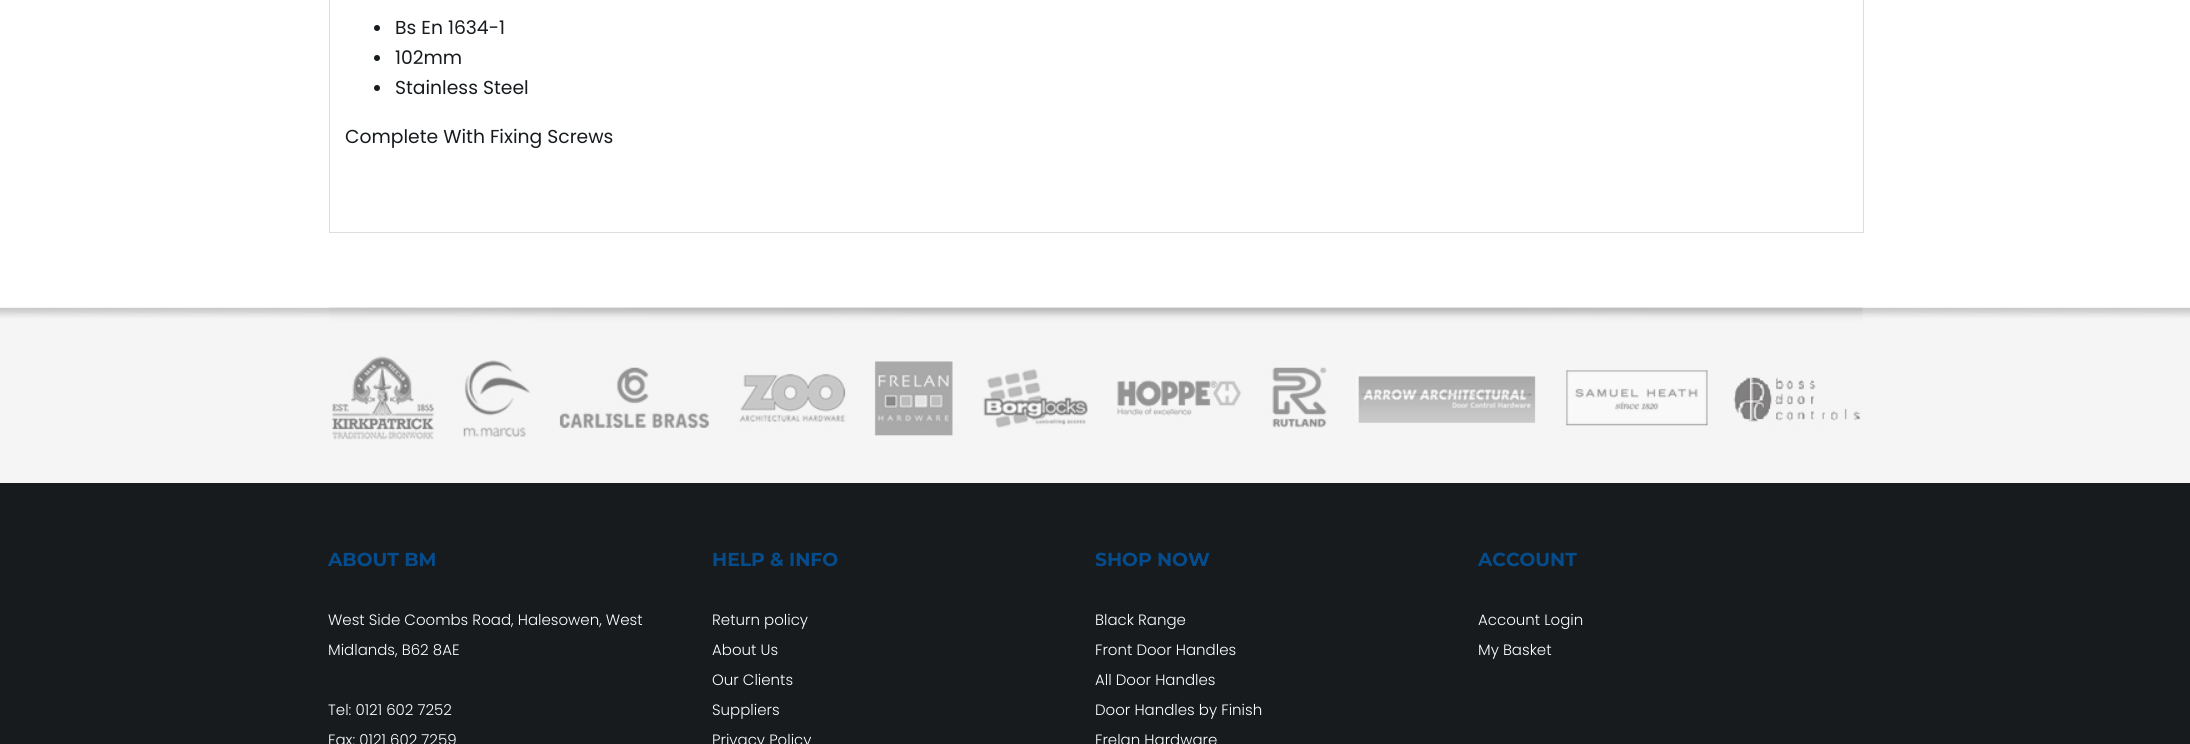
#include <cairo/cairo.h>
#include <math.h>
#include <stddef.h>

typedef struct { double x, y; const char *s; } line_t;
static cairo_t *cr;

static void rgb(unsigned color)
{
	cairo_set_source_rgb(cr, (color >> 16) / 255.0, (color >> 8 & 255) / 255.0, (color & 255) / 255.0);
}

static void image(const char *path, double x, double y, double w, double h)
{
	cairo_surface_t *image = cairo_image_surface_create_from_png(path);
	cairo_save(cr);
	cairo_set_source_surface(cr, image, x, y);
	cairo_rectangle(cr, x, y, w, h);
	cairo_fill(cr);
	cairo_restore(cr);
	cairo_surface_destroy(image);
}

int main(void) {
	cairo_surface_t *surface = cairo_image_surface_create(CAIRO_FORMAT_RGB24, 2190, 744);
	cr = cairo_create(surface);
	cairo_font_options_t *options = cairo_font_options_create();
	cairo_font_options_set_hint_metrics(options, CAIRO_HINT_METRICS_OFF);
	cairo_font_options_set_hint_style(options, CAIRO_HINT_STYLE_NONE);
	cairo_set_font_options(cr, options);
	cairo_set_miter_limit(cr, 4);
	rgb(0xffffff);
	cairo_paint(cr);
	cairo_rectangle(cr, 329.5, -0.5, 1534, 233);
	rgb(0xdddddd);
	cairo_set_line_width(cr, 1);
	cairo_stroke(cr);
	rgb(0x171b1e);
	cairo_arc(cr, 377, 28, 3, 0, 2 * M_PI);
	cairo_fill(cr);
	cairo_arc(cr, 377, 58, 3, 0, 2 * M_PI);
	cairo_fill(cr);
	cairo_arc(cr, 377, 88, 3, 0, 2 * M_PI);
	cairo_fill(cr);
	rgb(0xf5f5f5);
	cairo_rectangle(cr, 0, 318, 2190, 165);
	cairo_fill(cr);
	image("img/1.png", 0, 307, 2190, 11);
	image("img/2.png", 329, 307, 1534, 133);
	rgb(0x171b1e);
	cairo_rectangle(cr, 0, 483, 2190, 261);
	cairo_fill(cr);
	cairo_select_font_face(cr, "Poppins", CAIRO_FONT_SLANT_NORMAL, CAIRO_FONT_WEIGHT_NORMAL);
	cairo_set_font_size(cr, 18.75);
	{
		static const line_t items[] = {
			{395, 34, "Bs En 1634-1"},
			{395, 64, "102mm"},
			{395, 94, "Stainless Steel"},
			{345, 143, "Complete With Fixing Screws"},
		};
		for (size_t i = 0; i < sizeof items / sizeof *items; i++) {
			cairo_move_to(cr, items[i].x, items[i].y);
			cairo_show_text(cr, items[i].s);
		}
	}
	cairo_select_font_face(cr, "Montserrat", CAIRO_FONT_SLANT_NORMAL, CAIRO_FONT_WEIGHT_BOLD);
	rgb(0x054c8d);
	cairo_move_to(cr, 328, 566);
	cairo_show_text(cr, "ABOUT BM");
	cairo_select_font_face(cr, "Poppins Light", CAIRO_FONT_SLANT_NORMAL, CAIRO_FONT_WEIGHT_NORMAL);
	cairo_set_font_size(cr, 15);
	rgb(0xffffff);
	{
		static const line_t items[] = {
			{328, 625, "West Side Coombs Road, Halesowen, West"},
			{328, 655, "Midlands, B62 8AE"},
			{328, 715, "Tel: 0121 602 7252"},
			{328, 745, "Fax: 0121 602 7259"},
		};
		for (size_t i = 0; i < sizeof items / sizeof *items; i++) {
			cairo_move_to(cr, items[i].x, items[i].y);
			cairo_show_text(cr, items[i].s);
		}
	}
	cairo_select_font_face(cr, "Montserrat", CAIRO_FONT_SLANT_NORMAL, CAIRO_FONT_WEIGHT_BOLD);
	cairo_set_font_size(cr, 18.75);
	rgb(0x054c8d);
	cairo_move_to(cr, 712, 566);
	cairo_show_text(cr, "HELP & INFO");
	cairo_select_font_face(cr, "Poppins Light", CAIRO_FONT_SLANT_NORMAL, CAIRO_FONT_WEIGHT_NORMAL);
	cairo_set_font_size(cr, 15);
	rgb(0xffffff);
	{
		static const line_t items[] = {
			{712, 625, "Return policy"},
			{712, 655, "About Us"},
			{712, 685, "Our Clients"},
			{712, 715, "Suppliers"},
			{712, 745, "Privacy Policy"},
		};
		for (size_t i = 0; i < sizeof items / sizeof *items; i++) {
			cairo_move_to(cr, items[i].x, items[i].y);
			cairo_show_text(cr, items[i].s);
		}
	}
	cairo_select_font_face(cr, "Montserrat", CAIRO_FONT_SLANT_NORMAL, CAIRO_FONT_WEIGHT_BOLD);
	cairo_set_font_size(cr, 18.75);
	rgb(0x054c8d);
	cairo_move_to(cr, 1095, 566);
	cairo_show_text(cr, "SHOP NOW");
	cairo_select_font_face(cr, "Poppins Light", CAIRO_FONT_SLANT_NORMAL, CAIRO_FONT_WEIGHT_NORMAL);
	cairo_set_font_size(cr, 15);
	rgb(0xffffff);
	{
		static const line_t items[] = {
			{1095, 625, "Black Range"},
			{1095, 655, "Front Door Handles"},
			{1095, 685, "All Door Handles"},
			{1095, 715, "Door Handles by Finish"},
			{1095, 745, "Frelan Hardware"},
		};
		for (size_t i = 0; i < sizeof items / sizeof *items; i++) {
			cairo_move_to(cr, items[i].x, items[i].y);
			cairo_show_text(cr, items[i].s);
		}
	}
	cairo_select_font_face(cr, "Montserrat", CAIRO_FONT_SLANT_NORMAL, CAIRO_FONT_WEIGHT_BOLD);
	cairo_set_font_size(cr, 18.75);
	rgb(0x054c8d);
	cairo_move_to(cr, 1478, 566);
	cairo_show_text(cr, "ACCOUNT");
	cairo_select_font_face(cr, "Poppins Light", CAIRO_FONT_SLANT_NORMAL, CAIRO_FONT_WEIGHT_NORMAL);
	cairo_set_font_size(cr, 15);
	rgb(0xffffff);
	cairo_move_to(cr, 1478, 625);
	cairo_show_text(cr, "Account Login");
	cairo_move_to(cr, 1478, 655);
	cairo_show_text(cr, "My Basket");
	cairo_surface_write_to_png(surface, "page.png");
	cairo_font_options_destroy(options);
	cairo_destroy(cr);
	cairo_surface_destroy(surface);
	return 0;
}
